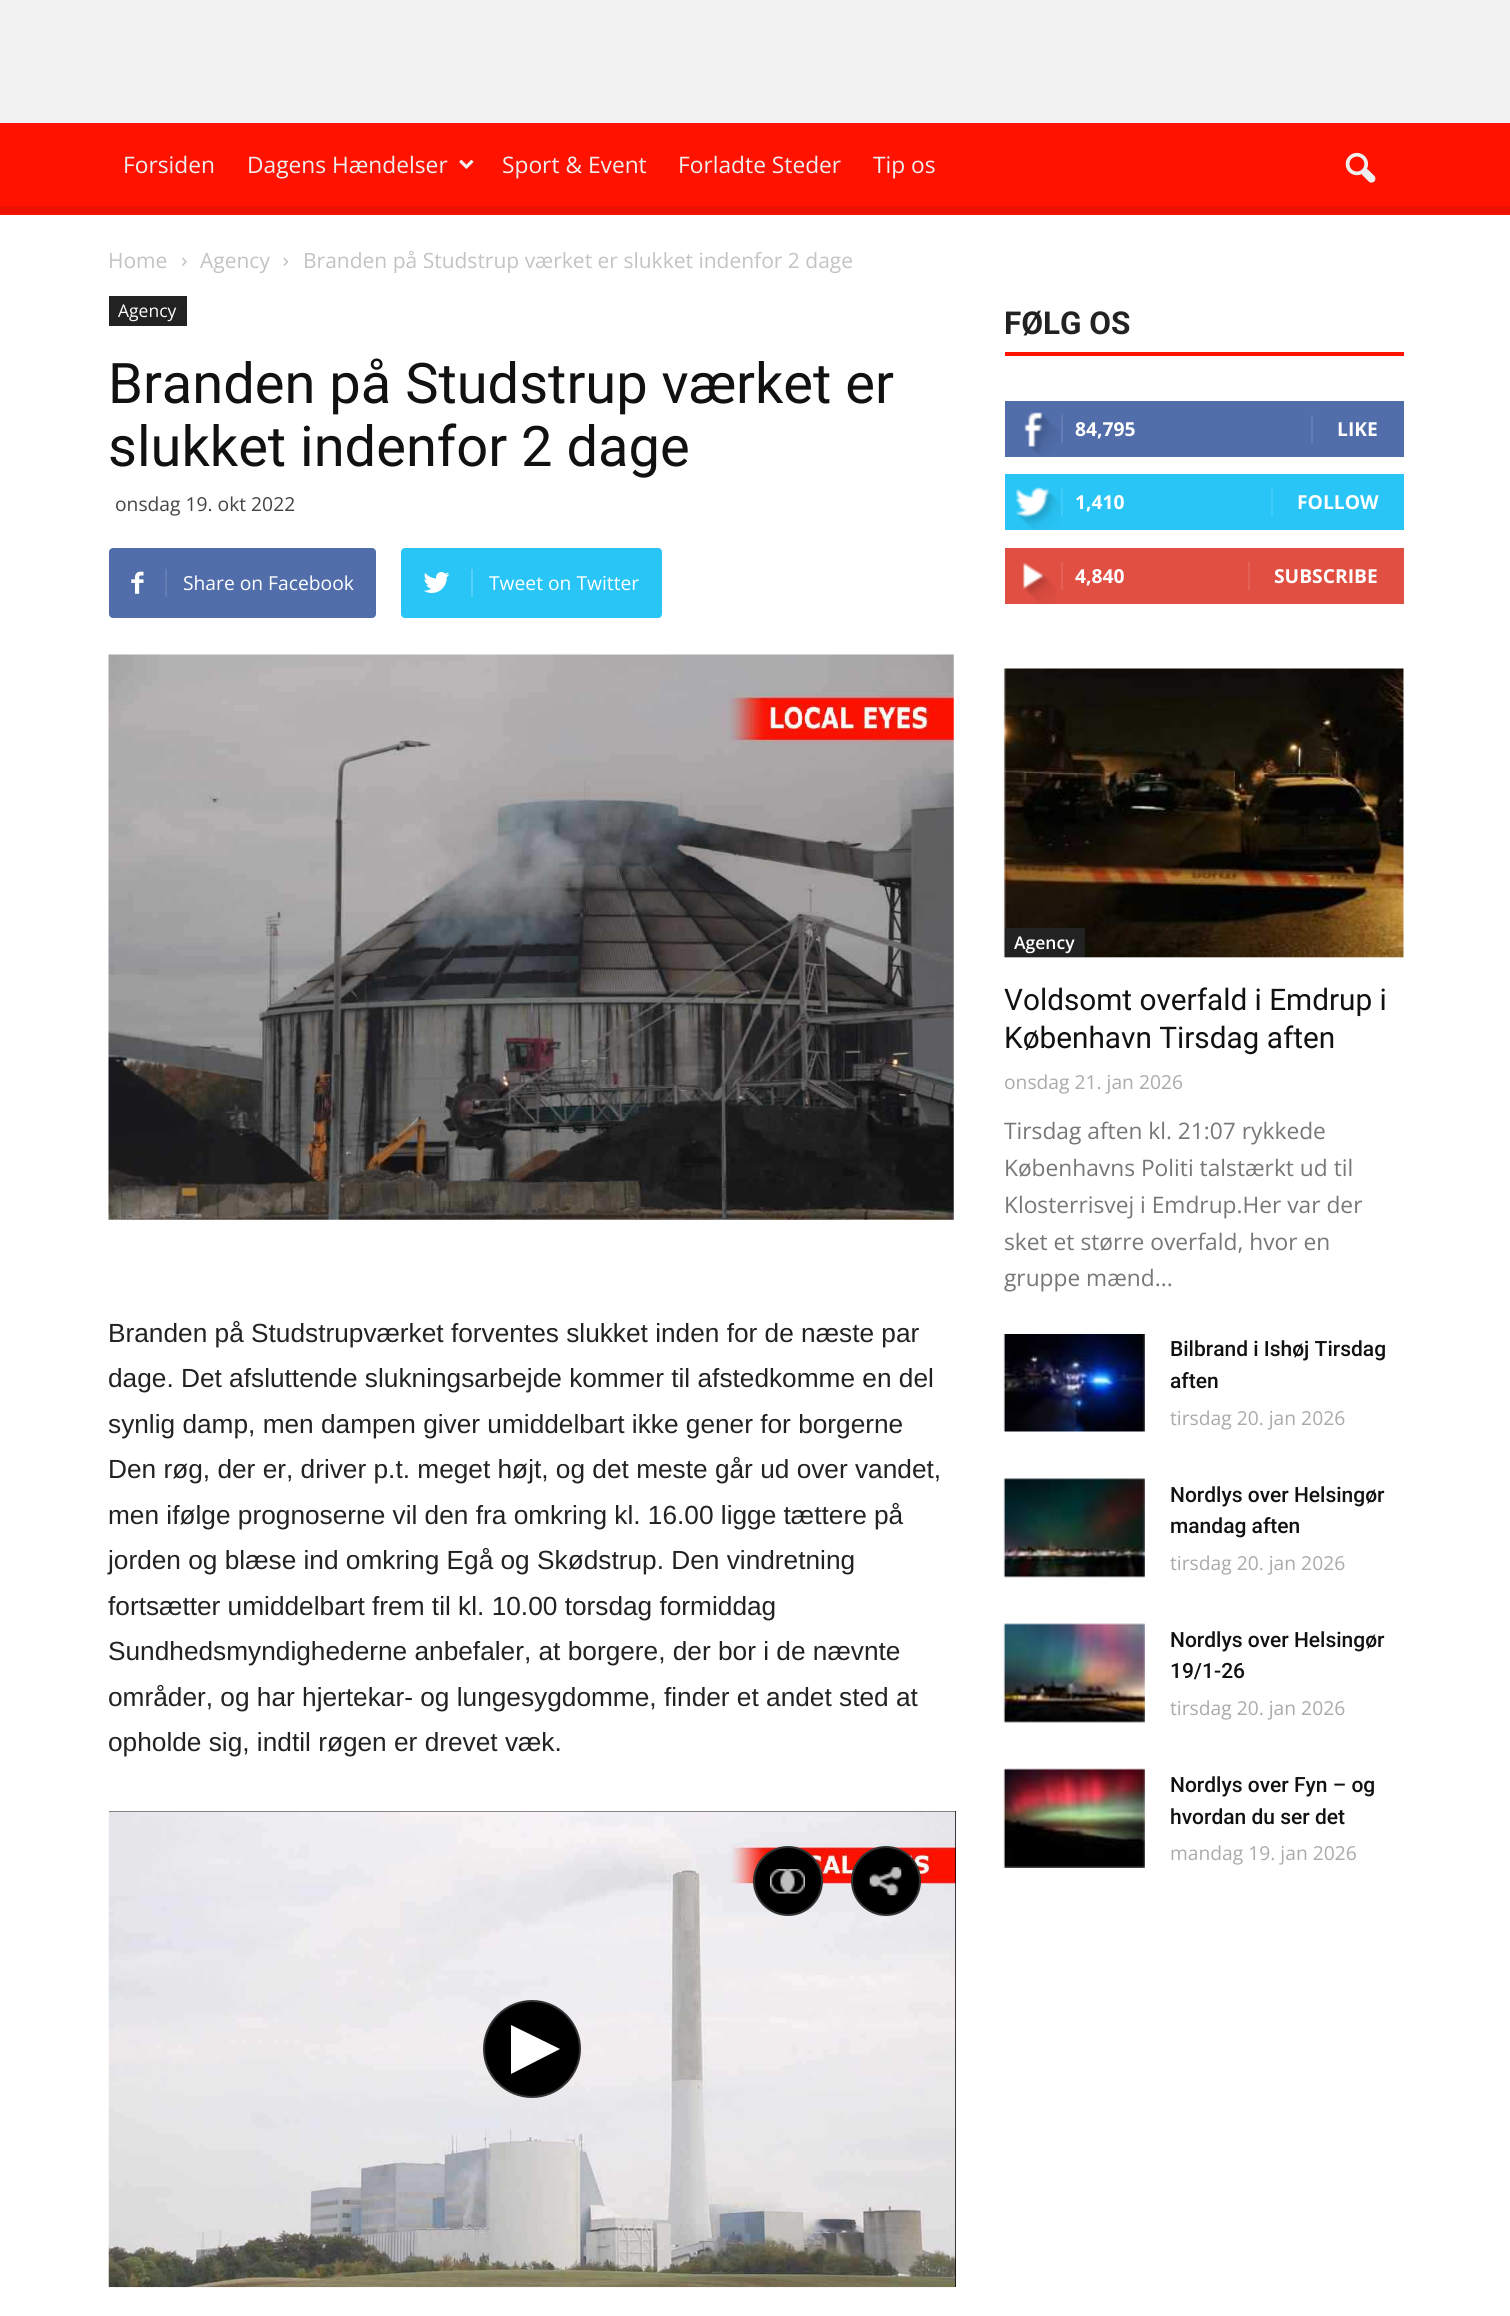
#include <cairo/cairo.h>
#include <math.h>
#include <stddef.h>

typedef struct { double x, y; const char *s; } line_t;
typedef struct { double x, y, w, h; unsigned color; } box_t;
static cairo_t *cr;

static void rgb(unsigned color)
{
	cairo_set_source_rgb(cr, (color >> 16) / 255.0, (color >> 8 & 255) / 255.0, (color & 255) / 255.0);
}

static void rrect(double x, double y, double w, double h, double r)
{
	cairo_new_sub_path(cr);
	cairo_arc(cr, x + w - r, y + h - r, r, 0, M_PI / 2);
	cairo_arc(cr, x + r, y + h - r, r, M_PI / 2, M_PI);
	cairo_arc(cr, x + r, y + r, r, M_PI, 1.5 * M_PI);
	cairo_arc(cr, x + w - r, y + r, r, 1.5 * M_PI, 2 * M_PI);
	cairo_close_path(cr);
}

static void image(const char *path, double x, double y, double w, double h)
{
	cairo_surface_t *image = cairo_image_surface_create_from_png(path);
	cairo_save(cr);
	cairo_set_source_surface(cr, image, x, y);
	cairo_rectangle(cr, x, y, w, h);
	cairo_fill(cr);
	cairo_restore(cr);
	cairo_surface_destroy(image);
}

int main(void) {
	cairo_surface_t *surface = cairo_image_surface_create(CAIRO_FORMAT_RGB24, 1510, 2316);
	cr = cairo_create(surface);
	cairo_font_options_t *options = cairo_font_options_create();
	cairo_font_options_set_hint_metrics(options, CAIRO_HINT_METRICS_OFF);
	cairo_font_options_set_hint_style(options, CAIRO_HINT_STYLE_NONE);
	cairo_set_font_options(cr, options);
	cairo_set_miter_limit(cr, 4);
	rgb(0xf2f2f2);
	cairo_paint(cr);
	rgb(0xff1200);
	cairo_rectangle(cr, 0, 123, 1510, 92);
	cairo_fill(cr);
	image("img/1.png", 459, 159, 15, 10);
	image("img/2.png", 1345, 152, 31, 31);
	image("img/3.png", 0, 206, 1510, 9);
	rgb(0xffffff);
	cairo_rectangle(cr, 0, 215, 1510, 2101);
	cairo_fill(cr);
	image("img/4.png", 182, 257, 5, 9);
	image("img/5.png", 283, 257, 6, 9);
	rgb(0x222222);
	cairo_rectangle(cr, 109, 296, 78, 30);
	cairo_fill(cr);
	rgb(0x516eab);
	rrect(109, 548, 267, 70, 4);
	cairo_fill(cr);
	image("img/6.png", 131, 571, 13, 23);
	rgb(0x627db3);
	cairo_rectangle(cr, 165, 569, 2, 28);
	cairo_fill(cr);
	rgb(0x29c5f6);
	rrect(401, 548, 261, 70, 4);
	cairo_fill(cr);
	image("img/7.png", 423, 572, 27, 21);
	rgb(0x54d1f8);
	cairo_rectangle(cr, 471, 569, 2, 28);
	cairo_fill(cr);
	image("img/8.png", 108, 654, 846, 566);
	rgb(0x000000);
	cairo_rectangle(cr, 109, 1811, 847, 476);
	cairo_fill(cr);
	image("img/9.png", 108, 1811, 848, 477);
	cairo_arc(cr, 788, 1881, 34, 0, 2 * M_PI);
	cairo_fill_preserve(cr);
	rgb(0x333333);
	cairo_stroke(cr);
	image("img/10.png", 770, 1869, 35, 25);
	rgb(0x000000);
	cairo_arc(cr, 886, 1881, 34, 0, 2 * M_PI);
	cairo_fill_preserve(cr);
	rgb(0x333333);
	cairo_stroke(cr);
	image("img/11.png", 869, 1867, 33, 29);
	rgb(0x000000);
	cairo_arc(cr, 532, 2049, 48, 0, 2 * M_PI);
	cairo_fill_preserve(cr);
	rgb(0x333333);
	cairo_stroke(cr);
	rgb(0xffffff);
	cairo_new_path(cr);
	cairo_move_to(cr, 560, 2049);
	cairo_line_to(cr, 511, 2074);
	cairo_line_to(cr, 511, 2025);
	cairo_close_path(cr);
	cairo_fill(cr);
	rgb(0xff1200);
	cairo_rectangle(cr, 1005, 352, 399, 4);
	cairo_fill(cr);
	rgb(0x516eab);
	cairo_rectangle(cr, 1005, 401, 399, 56);
	cairo_fill(cr);
	image("img/12.png", 1024, 412, 36, 44);
	{
		static const box_t items[] = {
			{1061, 415, 2, 28, 0x627db3},
			{1311, 415, 2, 28, 0x627db3},
			{1005, 474, 399, 56, 0x29c5f6},
		};
		for (size_t i = 0; i < sizeof items / sizeof *items; i++) {
			rgb(items[i].color);
			cairo_rectangle(cr, items[i].x, items[i].y, items[i].w, items[i].h);
			cairo_fill(cr);
		}
	}
	image("img/13.png", 1015, 487, 45, 43);
	{
		static const box_t items[] = {
			{1061, 488, 2, 28, 0x3ecbf7},
			{1271, 488, 2, 28, 0x3ecbf7},
			{1005, 548, 399, 56, 0xe14e42},
		};
		for (size_t i = 0; i < sizeof items / sizeof *items; i++) {
			rgb(items[i].color);
			cairo_rectangle(cr, items[i].x, items[i].y, items[i].w, items[i].h);
			cairo_fill(cr);
		}
	}
	image("img/14.png", 1022, 562, 35, 42);
	rgb(0xe46055);
	cairo_rectangle(cr, 1061, 562, 2, 28);
	cairo_fill(cr);
	cairo_rectangle(cr, 1248, 562, 2, 28);
	cairo_fill(cr);
	image("img/15.png", 1003, 668, 401, 290);
	rgb(0x222222);
	cairo_rectangle(cr, 1005, 928, 80, 29);
	cairo_fill(cr);
	image("img/16.png", 1003, 1334, 142, 98);
	image("img/17.png", 1003, 1478, 142, 100);
	image("img/18.png", 1003, 1623, 142, 100);
	image("img/19.png", 1003, 1768, 142, 100);
	cairo_select_font_face(cr, "Open Sans", CAIRO_FONT_SLANT_NORMAL, CAIRO_FONT_WEIGHT_NORMAL);
	cairo_set_font_size(cr, 22.75);
	rgb(0xefefef);
	{
		static const line_t items[] = {
			{123, 173, "Forsiden"},
			{247, 173, "Dagens Hændelser"},
			{502, 173, "Sport & Event"},
			{678, 173, "Forladte Steder"},
			{873, 173, "Tip os"},
		};
		for (size_t i = 0; i < sizeof items / sizeof *items; i++) {
			cairo_move_to(cr, items[i].x, items[i].y);
			cairo_show_text(cr, items[i].s);
		}
	}
	cairo_set_font_size(cr, 21);
	rgb(0xc3c3c3);
	{
		static const line_t items[] = {
			{108, 268, "Home"},
			{200, 268, "Agency"},
			{303, 268, "Branden på Studstrup værket er slukket indenfor 2 dage"},
		};
		for (size_t i = 0; i < sizeof items / sizeof *items; i++) {
			cairo_move_to(cr, items[i].x, items[i].y);
			cairo_show_text(cr, items[i].s);
		}
	}
	cairo_set_font_size(cr, 17.5);
	rgb(0xffffff);
	cairo_move_to(cr, 118, 317);
	cairo_show_text(cr, "Agency");
	cairo_select_font_face(cr, "Roboto", CAIRO_FONT_SLANT_NORMAL, CAIRO_FONT_WEIGHT_NORMAL);
	cairo_set_font_size(cr, 56);
	rgb(0x111111);
	cairo_move_to(cr, 108, 403);
	cairo_show_text(cr, "Branden på Studstrup værket er");
	cairo_move_to(cr, 108, 466);
	cairo_show_text(cr, "slukket indenfor 2 dage");
	cairo_select_font_face(cr, "Open Sans", CAIRO_FONT_SLANT_NORMAL, CAIRO_FONT_WEIGHT_NORMAL);
	cairo_set_font_size(cr, 19.25);
	rgb(0x444444);
	cairo_move_to(cr, 115, 511);
	cairo_show_text(cr, "onsdag 19. okt 2022");
	rgb(0xffffff);
	cairo_move_to(cr, 183, 590);
	cairo_show_text(cr, "Share on Facebook");
	cairo_move_to(cr, 489, 590);
	cairo_show_text(cr, "Tweet on Twitter");
	cairo_select_font_face(cr, "Liberation Sans", CAIRO_FONT_SLANT_NORMAL, CAIRO_FONT_WEIGHT_NORMAL);
	cairo_set_font_size(cr, 26.25);
	rgb(0x222222);
	{
		static const line_t items[] = {
			{108, 1342, "Branden på Studstrupværket forventes slukket inden for de næste par"},
			{108, 1387, "dage. Det afsluttende slukningsarbejde kommer til afstedkomme en del"},
			{108, 1433, "synlig damp, men dampen giver umiddelbart ikke gener for borgerne"},
			{108, 1478, "Den røg, der er, driver p.t. meget højt, og det meste går ud over vandet,"},
			{108, 1524, "men ifølge prognoserne vil den fra omkring kl. 16.00 ligge tættere på"},
			{108, 1569, "jorden og blæse ind omkring Egå og Skødstrup. Den vindretning"},
			{108, 1615, "fortsætter umiddelbart frem til kl. 10.00 torsdag formiddag"},
			{108, 1660, "Sundhedsmyndighederne anbefaler, at borgere, der bor i de nævnte"},
			{108, 1706, "områder, og har hjertekar- og lungesygdomme, finder et andet sted at"},
			{108, 1751, "opholde sig, indtil røgen er drevet væk."},
		};
		for (size_t i = 0; i < sizeof items / sizeof *items; i++) {
			cairo_move_to(cr, items[i].x, items[i].y);
			cairo_show_text(cr, items[i].s);
		}
	}
	cairo_select_font_face(cr, "Roboto", CAIRO_FONT_SLANT_NORMAL, CAIRO_FONT_WEIGHT_BOLD);
	cairo_set_font_size(cr, 31.5);
	cairo_move_to(cr, 1004, 334);
	cairo_show_text(cr, "FØLG OS");
	cairo_select_font_face(cr, "Open Sans", CAIRO_FONT_SLANT_NORMAL, CAIRO_FONT_WEIGHT_BOLD);
	cairo_set_font_size(cr, 19.25);
	rgb(0xffffff);
	{
		static const line_t items[] = {
			{1075, 436, "84,795"},
			{1337, 436, "LIKE"},
			{1075, 509, "1,410"},
			{1297, 509, "FOLLOW"},
			{1075, 583, "4,840"},
			{1274, 583, "SUBSCRIBE"},
		};
		for (size_t i = 0; i < sizeof items / sizeof *items; i++) {
			cairo_move_to(cr, items[i].x, items[i].y);
			cairo_show_text(cr, items[i].s);
		}
	}
	cairo_select_font_face(cr, "Open Sans SemiBold", CAIRO_FONT_SLANT_NORMAL, CAIRO_FONT_WEIGHT_NORMAL);
	cairo_set_font_size(cr, 17.5);
	cairo_move_to(cr, 1014, 949);
	cairo_show_text(cr, "Agency");
	cairo_select_font_face(cr, "Roboto", CAIRO_FONT_SLANT_NORMAL, CAIRO_FONT_WEIGHT_NORMAL);
	cairo_set_font_size(cr, 29.75);
	rgb(0x111111);
	cairo_move_to(cr, 1004, 1010);
	cairo_show_text(cr, "Voldsomt overfald i Emdrup i");
	cairo_move_to(cr, 1004, 1048);
	cairo_show_text(cr, "København Tirsdag aften");
	cairo_select_font_face(cr, "Open Sans", CAIRO_FONT_SLANT_NORMAL, CAIRO_FONT_WEIGHT_NORMAL);
	cairo_set_font_size(cr, 19.25);
	rgb(0xaaaaaa);
	cairo_move_to(cr, 1004, 1089);
	cairo_show_text(cr, "onsdag 21. jan 2026");
	cairo_set_font_size(cr, 22.75);
	rgb(0x777777);
	{
		static const line_t items[] = {
			{1004, 1139, "Tirsdag aften kl. 21:07 rykkede"},
			{1004, 1176, "Københavns Politi talstærkt ud til"},
			{1004, 1213, "Klosterrisvej i Emdrup.Her var der"},
			{1004, 1250, "sket et større overfald, hvor en"},
			{1004, 1286, "gruppe mænd..."},
		};
		for (size_t i = 0; i < sizeof items / sizeof *items; i++) {
			cairo_move_to(cr, items[i].x, items[i].y);
			cairo_show_text(cr, items[i].s);
		}
	}
	cairo_select_font_face(cr, "Roboto Medium", CAIRO_FONT_SLANT_NORMAL, CAIRO_FONT_WEIGHT_NORMAL);
	cairo_set_font_size(cr, 21);
	rgb(0x111111);
	cairo_move_to(cr, 1170, 1356);
	cairo_show_text(cr, "Bilbrand i Ishøj Tirsdag");
	cairo_move_to(cr, 1170, 1388);
	cairo_show_text(cr, "aften");
	cairo_select_font_face(cr, "Open Sans", CAIRO_FONT_SLANT_NORMAL, CAIRO_FONT_WEIGHT_NORMAL);
	cairo_set_font_size(cr, 19.25);
	rgb(0xaaaaaa);
	cairo_move_to(cr, 1170, 1425);
	cairo_show_text(cr, "tirsdag 20. jan 2026");
	cairo_select_font_face(cr, "Roboto Medium", CAIRO_FONT_SLANT_NORMAL, CAIRO_FONT_WEIGHT_NORMAL);
	cairo_set_font_size(cr, 21);
	rgb(0x111111);
	cairo_move_to(cr, 1170, 1502);
	cairo_show_text(cr, "Nordlys over Helsingør");
	cairo_move_to(cr, 1170, 1533);
	cairo_show_text(cr, "mandag aften");
	cairo_select_font_face(cr, "Open Sans", CAIRO_FONT_SLANT_NORMAL, CAIRO_FONT_WEIGHT_NORMAL);
	cairo_set_font_size(cr, 19.25);
	rgb(0xaaaaaa);
	cairo_move_to(cr, 1170, 1570);
	cairo_show_text(cr, "tirsdag 20. jan 2026");
	cairo_select_font_face(cr, "Roboto Medium", CAIRO_FONT_SLANT_NORMAL, CAIRO_FONT_WEIGHT_NORMAL);
	cairo_set_font_size(cr, 21);
	rgb(0x111111);
	cairo_move_to(cr, 1170, 1647);
	cairo_show_text(cr, "Nordlys over Helsingør");
	cairo_move_to(cr, 1170, 1678);
	cairo_show_text(cr, "19/1-26");
	cairo_select_font_face(cr, "Open Sans", CAIRO_FONT_SLANT_NORMAL, CAIRO_FONT_WEIGHT_NORMAL);
	cairo_set_font_size(cr, 19.25);
	rgb(0xaaaaaa);
	cairo_move_to(cr, 1170, 1715);
	cairo_show_text(cr, "tirsdag 20. jan 2026");
	cairo_select_font_face(cr, "Roboto Medium", CAIRO_FONT_SLANT_NORMAL, CAIRO_FONT_WEIGHT_NORMAL);
	cairo_set_font_size(cr, 21);
	rgb(0x111111);
	cairo_move_to(cr, 1170, 1792);
	cairo_show_text(cr, "Nordlys over Fyn – og");
	cairo_move_to(cr, 1170, 1824);
	cairo_show_text(cr, "hvordan du ser det");
	cairo_select_font_face(cr, "Open Sans", CAIRO_FONT_SLANT_NORMAL, CAIRO_FONT_WEIGHT_NORMAL);
	cairo_set_font_size(cr, 19.25);
	rgb(0xaaaaaa);
	cairo_move_to(cr, 1170, 1860);
	cairo_show_text(cr, "mandag 19. jan 2026");
	cairo_surface_write_to_png(surface, "page.png");
	cairo_font_options_destroy(options);
	cairo_destroy(cr);
	cairo_surface_destroy(surface);
	return 0;
}
